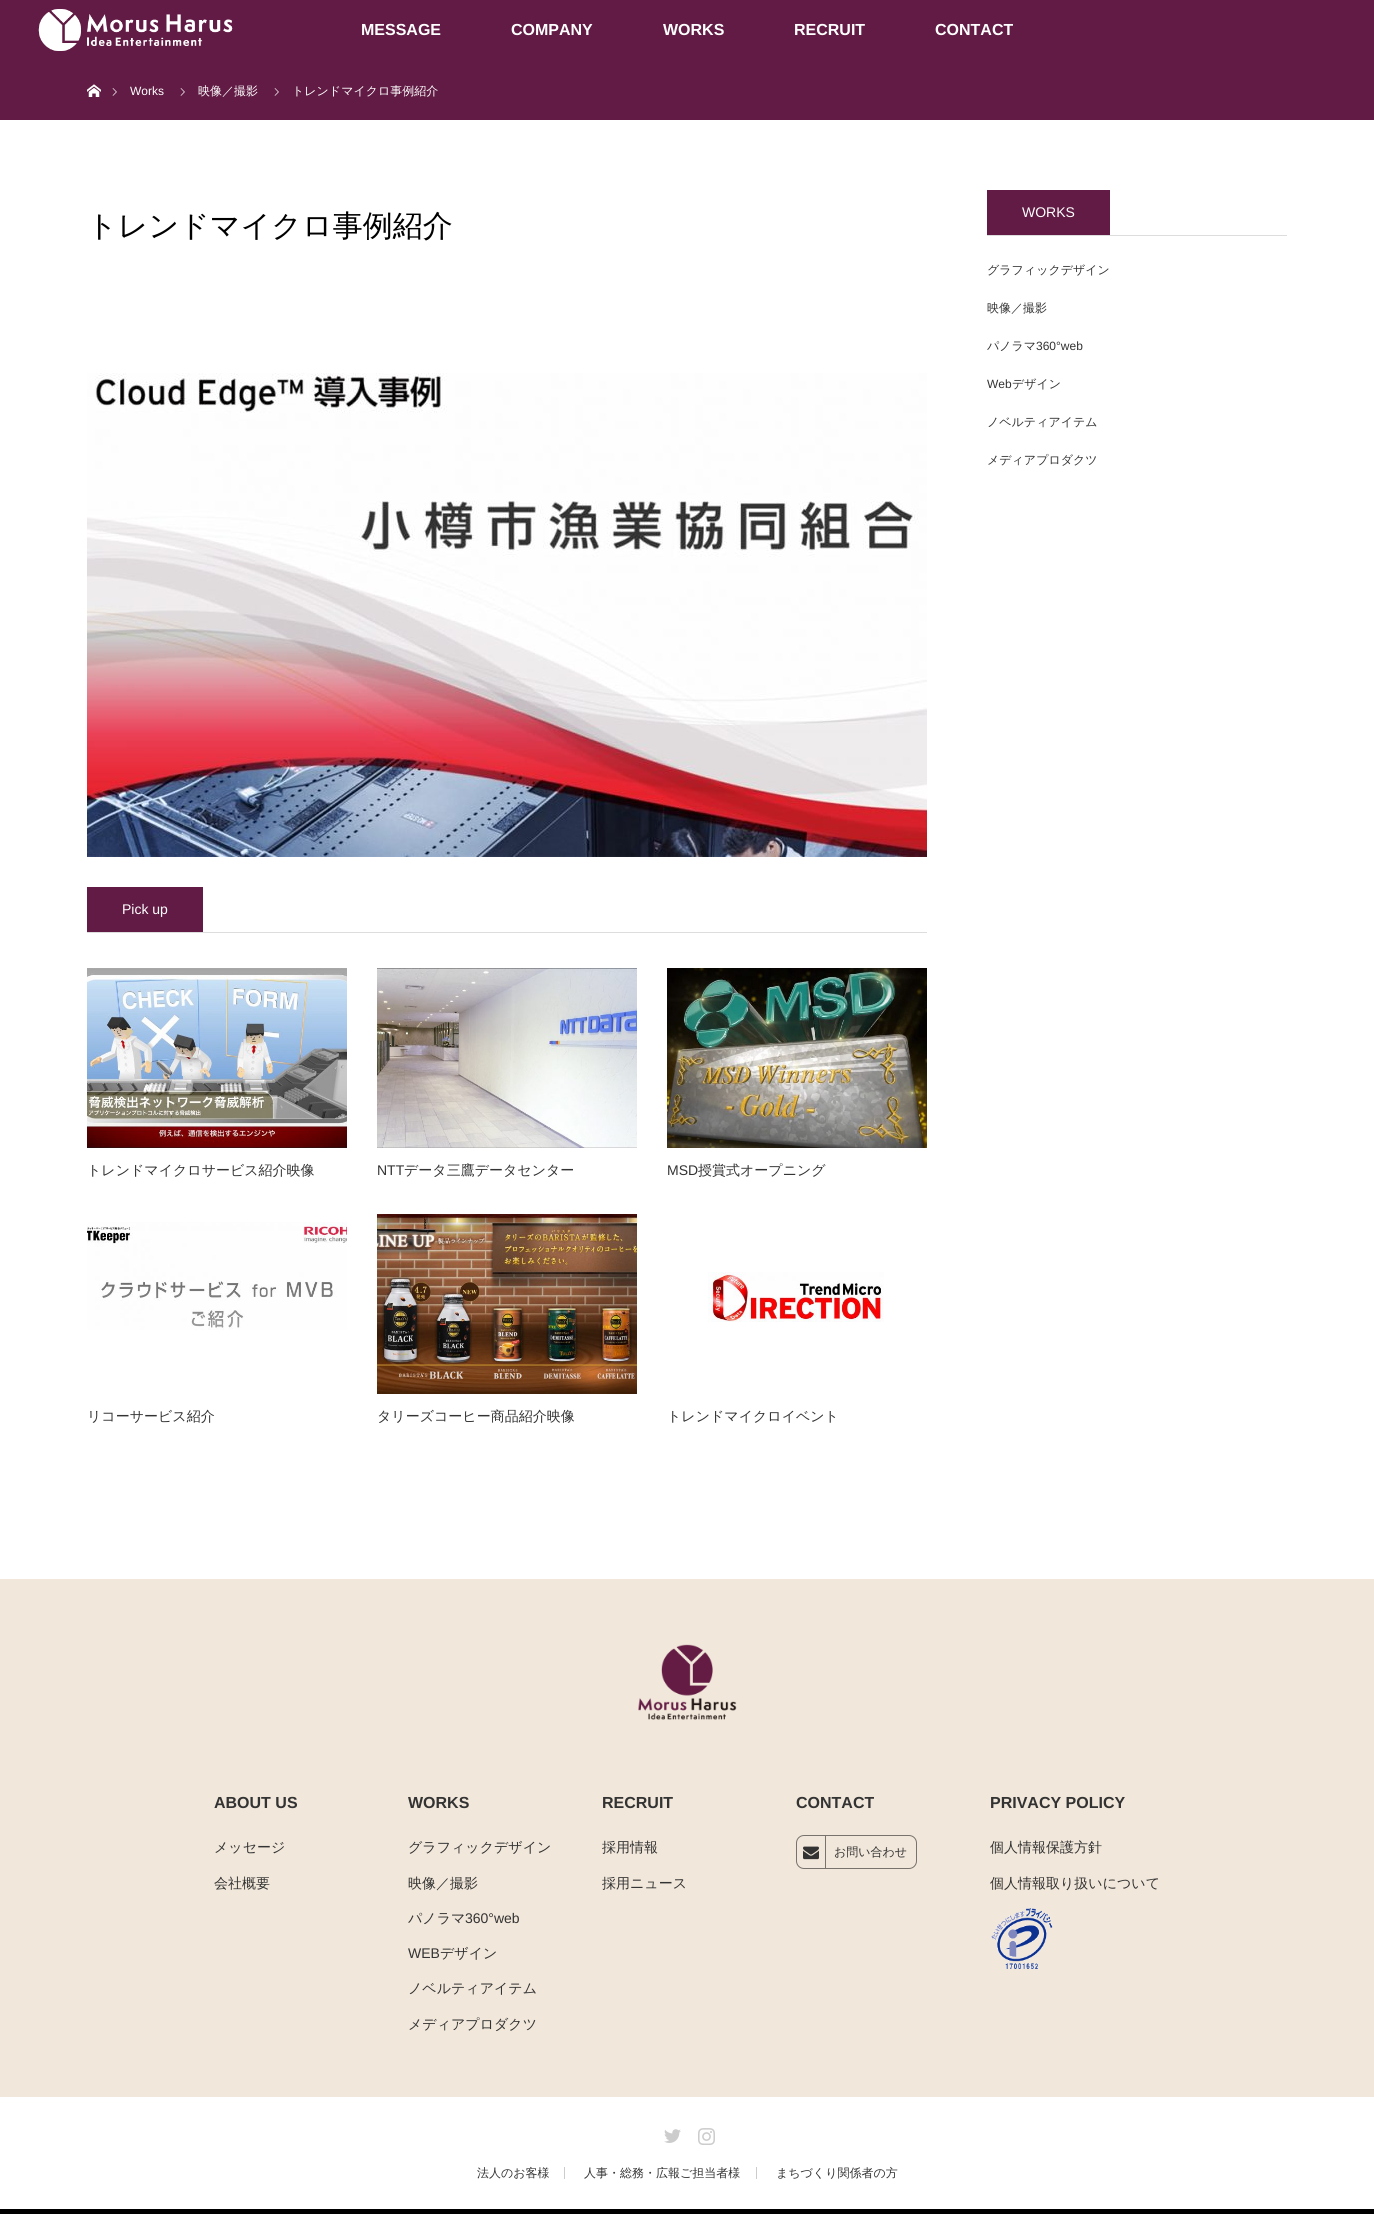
#include <cairo/cairo.h>
#include <math.h>
#include <stddef.h>

typedef struct { double x, y; const char *s; } line_t;
typedef struct { double x, y, w, h; unsigned color; } box_t;
static cairo_t *cr;

static void rgb(unsigned color)
{
	cairo_set_source_rgb(cr, (color >> 16) / 255.0, (color >> 8 & 255) / 255.0, (color & 255) / 255.0);
}

static void rrect(double x, double y, double w, double h, double r)
{
	cairo_new_sub_path(cr);
	cairo_arc(cr, x + w - r, y + h - r, r, 0, M_PI / 2);
	cairo_arc(cr, x + r, y + h - r, r, M_PI / 2, M_PI);
	cairo_arc(cr, x + r, y + r, r, M_PI, 1.5 * M_PI);
	cairo_arc(cr, x + w - r, y + r, r, 1.5 * M_PI, 2 * M_PI);
	cairo_close_path(cr);
}

static void image(const char *path, double x, double y, double w, double h)
{
	cairo_surface_t *image = cairo_image_surface_create_from_png(path);
	cairo_save(cr);
	cairo_set_source_surface(cr, image, x, y);
	cairo_rectangle(cr, x, y, w, h);
	cairo_fill(cr);
	cairo_restore(cr);
	cairo_surface_destroy(image);
}

int main(void) {
	cairo_surface_t *surface = cairo_image_surface_create(CAIRO_FORMAT_RGB24, 1374, 2214);
	cr = cairo_create(surface);
	cairo_font_options_t *options = cairo_font_options_create();
	cairo_font_options_set_hint_metrics(options, CAIRO_HINT_METRICS_OFF);
	cairo_font_options_set_hint_style(options, CAIRO_HINT_STYLE_NONE);
	cairo_set_font_options(cr, options);
	cairo_set_miter_limit(cr, 4);
	rgb(0xffffff);
	cairo_paint(cr);
	rgb(0x611b44);
	cairo_rectangle(cr, 0, 0, 1374, 120);
	cairo_fill(cr);
	image("img/1.png", 38, 9, 195, 42);
	image("img/2.png", 87, 84, 14, 13);
	image("img/3.png", 112, 88, 5, 8);
	image("img/3.png", 180, 88, 5, 8);
	image("img/3.png", 274, 88, 5, 8);
	image("img/4.png", 87, 373, 840, 484);
	rgb(0xdddddd);
	cairo_rectangle(cr, 87, 932, 840, 1);
	cairo_fill(cr);
	rgb(0x611b44);
	cairo_rectangle(cr, 87, 887, 116, 45);
	cairo_fill(cr);
	image("img/5.png", 87, 968, 260, 180);
	image("img/6.png", 377, 968, 260, 180);
	image("img/7.png", 667, 968, 260, 180);
	image("img/8.png", 87, 1222, 260, 108);
	image("img/9.png", 377, 1214, 260, 180);
	image("img/10.png", 708, 1272, 176, 50);
	{
		static const box_t items[] = {
			{987, 235, 300, 1, 0xdddddd},
			{987, 190, 123, 45, 0x611b44},
			{0, 1579, 1374, 518, 0xf1e7da},
		};
		for (size_t i = 0; i < sizeof items / sizeof *items; i++) {
			rgb(items[i].color);
			cairo_rectangle(cr, items[i].x, items[i].y, items[i].w, items[i].h);
			cairo_fill(cr);
		}
	}
	image("img/11.png", 638, 1644, 99, 76);
	rrect(796.5, 1835.5, 120, 33, 7.5);
	rgb(0x78736d);
	cairo_set_line_width(cr, 1);
	cairo_stroke(cr);
	image("img/12.png", 803, 1846, 16, 14);
	cairo_rectangle(cr, 825, 1836, 1, 32);
	cairo_fill(cr);
	image("img/13.png", 991, 1907, 62, 62);
	image("img/14.png", 664, 2129, 17, 14);
	image("img/15.png", 698, 2128, 17, 17);
	{
		static const box_t items[] = {
			{564, 2167, 1, 12, 0xcccccc},
			{756, 2167, 1, 12, 0xcccccc},
			{0, 2209, 1374, 5, 0x000000},
		};
		for (size_t i = 0; i < sizeof items / sizeof *items; i++) {
			rgb(items[i].color);
			cairo_rectangle(cr, items[i].x, items[i].y, items[i].w, items[i].h);
			cairo_fill(cr);
		}
	}
	cairo_select_font_face(cr, "Liberation Sans", CAIRO_FONT_SLANT_NORMAL, CAIRO_FONT_WEIGHT_BOLD);
	cairo_set_font_size(cr, 16);
	rgb(0xffffff);
	{
		static const line_t items[] = {
			{361, 35, "MESSAGE"},
			{511, 35, "COMPANY"},
			{663, 35, "WORKS"},
			{794, 35, "RECRUIT"},
			{935, 35, "CONTACT"},
		};
		for (size_t i = 0; i < sizeof items / sizeof *items; i++) {
			cairo_move_to(cr, items[i].x, items[i].y);
			cairo_show_text(cr, items[i].s);
		}
	}
	cairo_select_font_face(cr, "Liberation Sans", CAIRO_FONT_SLANT_NORMAL, CAIRO_FONT_WEIGHT_NORMAL);
	cairo_set_font_size(cr, 12);
	cairo_move_to(cr, 130, 95);
	cairo_show_text(cr, "Works");
	cairo_select_font_face(cr, "WenQuanYi Zen Hei Medium", CAIRO_FONT_SLANT_NORMAL, CAIRO_FONT_WEIGHT_NORMAL);
	cairo_move_to(cr, 198, 95);
	cairo_show_text(cr, "映像／撮影");
	cairo_move_to(cr, 292, 95);
	cairo_show_text(cr, "トレンドマイクロ事例紹介");
	cairo_set_font_size(cr, 30);
	rgb(0x000000);
	cairo_move_to(cr, 87, 236);
	cairo_show_text(cr, "トレンドマイクロ事例紹介");
	cairo_select_font_face(cr, "Liberation Sans", CAIRO_FONT_SLANT_NORMAL, CAIRO_FONT_WEIGHT_NORMAL);
	cairo_set_font_size(cr, 14);
	rgb(0xffffff);
	cairo_move_to(cr, 122, 914);
	cairo_show_text(cr, "Pick up");
	cairo_select_font_face(cr, "WenQuanYi Zen Hei Medium", CAIRO_FONT_SLANT_NORMAL, CAIRO_FONT_WEIGHT_NORMAL);
	rgb(0x333333);
	cairo_move_to(cr, 87, 1175);
	cairo_show_text(cr, "トレンドマイクロサービス紹介映像");
	cairo_select_font_face(cr, "Liberation Sans", CAIRO_FONT_SLANT_NORMAL, CAIRO_FONT_WEIGHT_NORMAL);
	cairo_move_to(cr, 377, 1175);
	cairo_show_text(cr, "NTT");
	cairo_select_font_face(cr, "WenQuanYi Zen Hei Medium", CAIRO_FONT_SLANT_NORMAL, CAIRO_FONT_WEIGHT_NORMAL);
	cairo_move_to(cr, 404, 1175);
	cairo_show_text(cr, "データ三鷹データセンター");
	cairo_select_font_face(cr, "Liberation Sans", CAIRO_FONT_SLANT_NORMAL, CAIRO_FONT_WEIGHT_NORMAL);
	cairo_move_to(cr, 667, 1175);
	cairo_show_text(cr, "MSD");
	cairo_select_font_face(cr, "WenQuanYi Zen Hei Medium", CAIRO_FONT_SLANT_NORMAL, CAIRO_FONT_WEIGHT_NORMAL);
	{
		static const line_t items[] = {
			{698, 1175, "授賞式オープニング"},
			{87, 1421, "リコーサービス紹介"},
			{377, 1421, "タリーズコーヒー商品紹介映像"},
			{667, 1421, "トレンドマイクロイベント"},
		};
		for (size_t i = 0; i < sizeof items / sizeof *items; i++) {
			cairo_move_to(cr, items[i].x, items[i].y);
			cairo_show_text(cr, items[i].s);
		}
	}
	cairo_select_font_face(cr, "Liberation Sans", CAIRO_FONT_SLANT_NORMAL, CAIRO_FONT_WEIGHT_NORMAL);
	rgb(0xffffff);
	cairo_move_to(cr, 1022, 217);
	cairo_show_text(cr, "WORKS");
	cairo_select_font_face(cr, "WenQuanYi Zen Hei Medium", CAIRO_FONT_SLANT_NORMAL, CAIRO_FONT_WEIGHT_NORMAL);
	cairo_set_font_size(cr, 12);
	rgb(0x333333);
	{
		static const line_t items[] = {
			{987, 274, "グラフィックデザイン"},
			{987, 312, "映像／撮影"},
			{987, 350, "パノラマ"},
		};
		for (size_t i = 0; i < sizeof items / sizeof *items; i++) {
			cairo_move_to(cr, items[i].x, items[i].y);
			cairo_show_text(cr, items[i].s);
		}
	}
	cairo_select_font_face(cr, "Liberation Sans", CAIRO_FONT_SLANT_NORMAL, CAIRO_FONT_WEIGHT_NORMAL);
	cairo_move_to(cr, 1036, 350);
	cairo_show_text(cr, "360°web");
	cairo_move_to(cr, 987, 388);
	cairo_show_text(cr, "Web");
	cairo_select_font_face(cr, "WenQuanYi Zen Hei Medium", CAIRO_FONT_SLANT_NORMAL, CAIRO_FONT_WEIGHT_NORMAL);
	{
		static const line_t items[] = {
			{1012, 388, "デザイン"},
			{987, 426, "ノベルティアイテム"},
			{987, 464, "メディアプロダクツ"},
		};
		for (size_t i = 0; i < sizeof items / sizeof *items; i++) {
			cairo_move_to(cr, items[i].x, items[i].y);
			cairo_show_text(cr, items[i].s);
		}
	}
	cairo_select_font_face(cr, "Liberation Sans", CAIRO_FONT_SLANT_NORMAL, CAIRO_FONT_WEIGHT_BOLD);
	cairo_set_font_size(cr, 16);
	cairo_move_to(cr, 214, 1808);
	cairo_show_text(cr, "ABOUT US");
	cairo_select_font_face(cr, "WenQuanYi Zen Hei Medium", CAIRO_FONT_SLANT_NORMAL, CAIRO_FONT_WEIGHT_NORMAL);
	cairo_set_font_size(cr, 14);
	cairo_move_to(cr, 214, 1852);
	cairo_show_text(cr, "メッセージ");
	cairo_move_to(cr, 214, 1888);
	cairo_show_text(cr, "会社概要");
	cairo_select_font_face(cr, "Liberation Sans", CAIRO_FONT_SLANT_NORMAL, CAIRO_FONT_WEIGHT_BOLD);
	cairo_set_font_size(cr, 16);
	cairo_move_to(cr, 408, 1808);
	cairo_show_text(cr, "WORKS");
	cairo_select_font_face(cr, "WenQuanYi Zen Hei Medium", CAIRO_FONT_SLANT_NORMAL, CAIRO_FONT_WEIGHT_NORMAL);
	cairo_set_font_size(cr, 14);
	{
		static const line_t items[] = {
			{408, 1852, "グラフィックデザイン"},
			{408, 1888, "映像／撮影"},
			{408, 1923, "パノラマ"},
		};
		for (size_t i = 0; i < sizeof items / sizeof *items; i++) {
			cairo_move_to(cr, items[i].x, items[i].y);
			cairo_show_text(cr, items[i].s);
		}
	}
	cairo_select_font_face(cr, "Liberation Sans", CAIRO_FONT_SLANT_NORMAL, CAIRO_FONT_WEIGHT_NORMAL);
	cairo_move_to(cr, 465, 1923);
	cairo_show_text(cr, "360°web");
	cairo_move_to(cr, 408, 1958);
	cairo_show_text(cr, "WEB");
	cairo_select_font_face(cr, "WenQuanYi Zen Hei Medium", CAIRO_FONT_SLANT_NORMAL, CAIRO_FONT_WEIGHT_NORMAL);
	{
		static const line_t items[] = {
			{440, 1958, "デザイン"},
			{408, 1993, "ノベルティアイテム"},
			{408, 2029, "メディアプロダクツ"},
		};
		for (size_t i = 0; i < sizeof items / sizeof *items; i++) {
			cairo_move_to(cr, items[i].x, items[i].y);
			cairo_show_text(cr, items[i].s);
		}
	}
	cairo_select_font_face(cr, "Liberation Sans", CAIRO_FONT_SLANT_NORMAL, CAIRO_FONT_WEIGHT_BOLD);
	cairo_set_font_size(cr, 16);
	cairo_move_to(cr, 602, 1808);
	cairo_show_text(cr, "RECRUIT");
	cairo_select_font_face(cr, "WenQuanYi Zen Hei Medium", CAIRO_FONT_SLANT_NORMAL, CAIRO_FONT_WEIGHT_NORMAL);
	cairo_set_font_size(cr, 14);
	cairo_move_to(cr, 602, 1852);
	cairo_show_text(cr, "採用情報");
	cairo_move_to(cr, 602, 1888);
	cairo_show_text(cr, "採用ニュース");
	cairo_select_font_face(cr, "Liberation Sans", CAIRO_FONT_SLANT_NORMAL, CAIRO_FONT_WEIGHT_BOLD);
	cairo_set_font_size(cr, 16);
	cairo_move_to(cr, 796, 1808);
	cairo_show_text(cr, "CONTACT");
	cairo_select_font_face(cr, "WenQuanYi Zen Hei Medium", CAIRO_FONT_SLANT_NORMAL, CAIRO_FONT_WEIGHT_NORMAL);
	cairo_set_font_size(cr, 12);
	cairo_move_to(cr, 834, 1856);
	cairo_show_text(cr, "お問い合わせ");
	cairo_select_font_face(cr, "Liberation Sans", CAIRO_FONT_SLANT_NORMAL, CAIRO_FONT_WEIGHT_BOLD);
	cairo_set_font_size(cr, 16);
	cairo_move_to(cr, 990, 1808);
	cairo_show_text(cr, "PRIVACY POLICY");
	cairo_select_font_face(cr, "WenQuanYi Zen Hei Medium", CAIRO_FONT_SLANT_NORMAL, CAIRO_FONT_WEIGHT_NORMAL);
	cairo_set_font_size(cr, 14);
	cairo_move_to(cr, 990, 1852);
	cairo_show_text(cr, "個人情報保護方針");
	cairo_move_to(cr, 990, 1888);
	cairo_show_text(cr, "個人情報取り扱いについて");
	cairo_set_font_size(cr, 12);
	{
		static const line_t items[] = {
			{477, 2177, "法人のお客様"},
			{584, 2177, "人事・総務・広報ご担当者様"},
			{776, 2177, "まちづくり関係者の方"},
		};
		for (size_t i = 0; i < sizeof items / sizeof *items; i++) {
			cairo_move_to(cr, items[i].x, items[i].y);
			cairo_show_text(cr, items[i].s);
		}
	}
	cairo_surface_write_to_png(surface, "page.png");
	cairo_font_options_destroy(options);
	cairo_destroy(cr);
	cairo_surface_destroy(surface);
	return 0;
}
